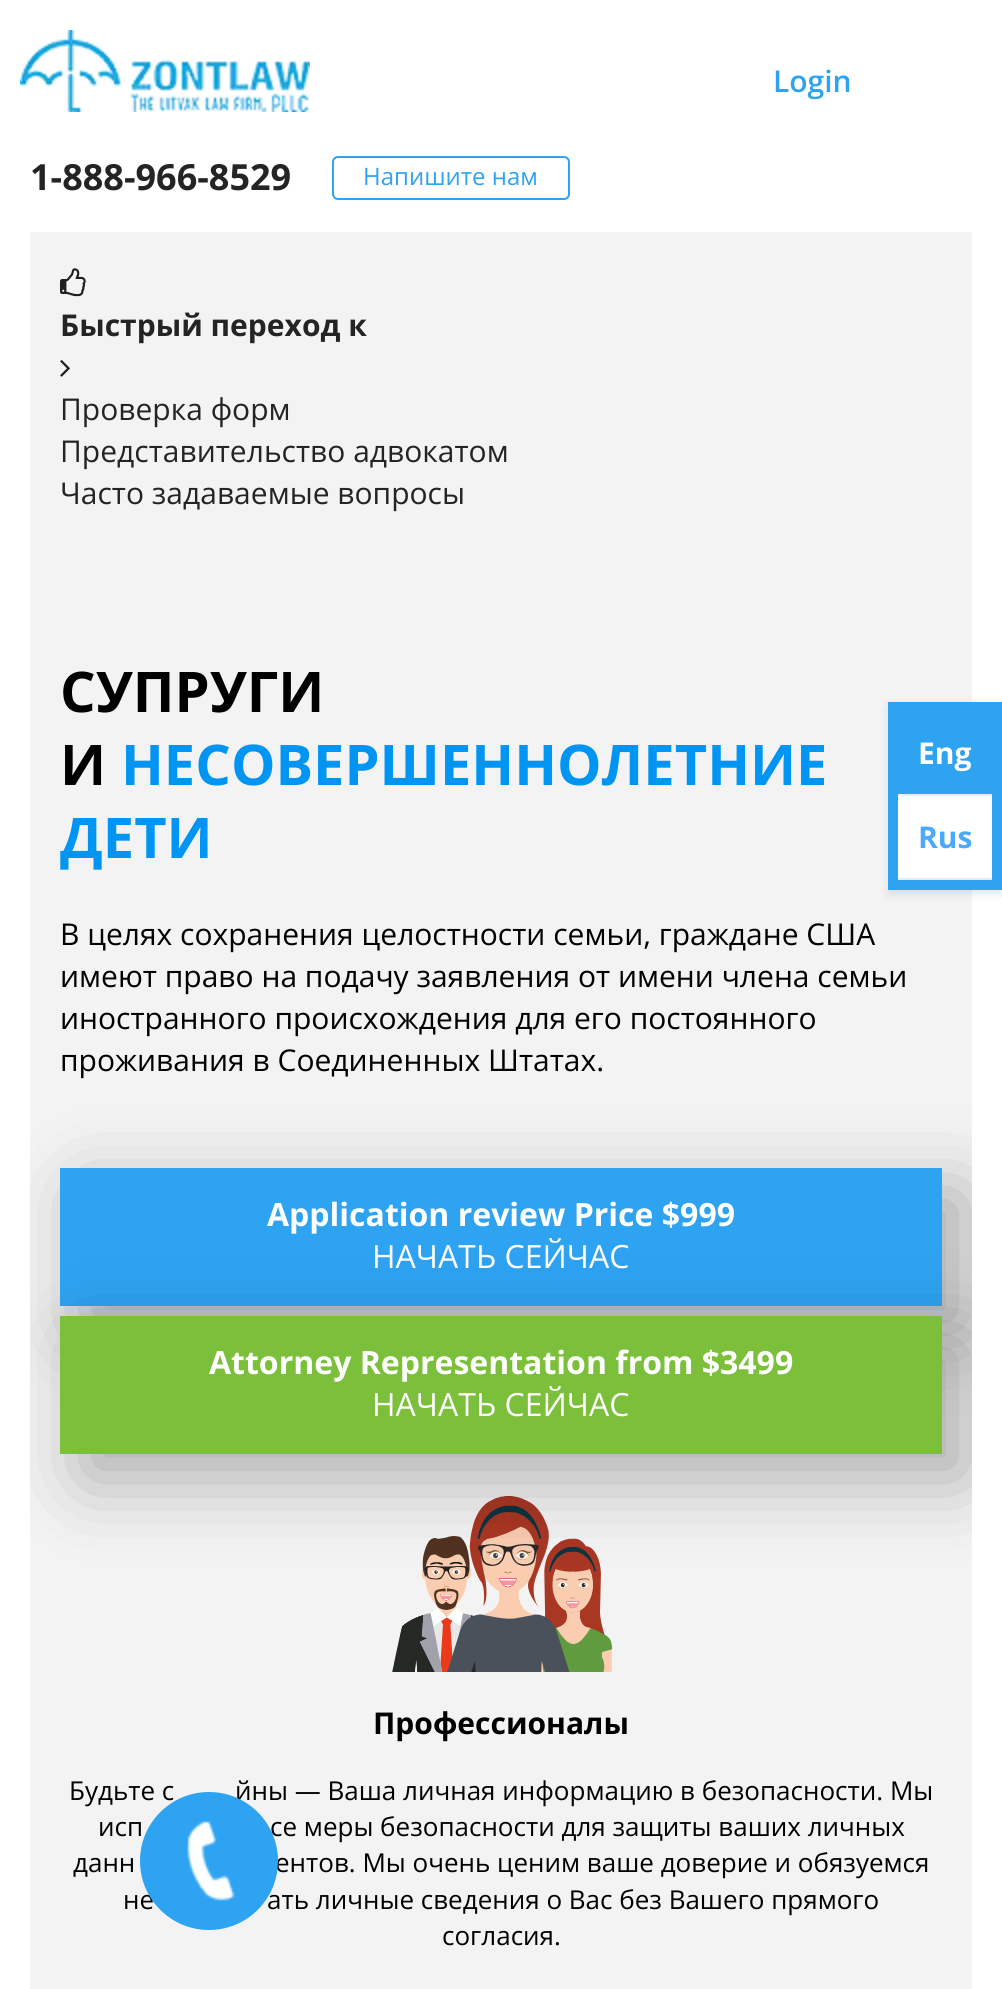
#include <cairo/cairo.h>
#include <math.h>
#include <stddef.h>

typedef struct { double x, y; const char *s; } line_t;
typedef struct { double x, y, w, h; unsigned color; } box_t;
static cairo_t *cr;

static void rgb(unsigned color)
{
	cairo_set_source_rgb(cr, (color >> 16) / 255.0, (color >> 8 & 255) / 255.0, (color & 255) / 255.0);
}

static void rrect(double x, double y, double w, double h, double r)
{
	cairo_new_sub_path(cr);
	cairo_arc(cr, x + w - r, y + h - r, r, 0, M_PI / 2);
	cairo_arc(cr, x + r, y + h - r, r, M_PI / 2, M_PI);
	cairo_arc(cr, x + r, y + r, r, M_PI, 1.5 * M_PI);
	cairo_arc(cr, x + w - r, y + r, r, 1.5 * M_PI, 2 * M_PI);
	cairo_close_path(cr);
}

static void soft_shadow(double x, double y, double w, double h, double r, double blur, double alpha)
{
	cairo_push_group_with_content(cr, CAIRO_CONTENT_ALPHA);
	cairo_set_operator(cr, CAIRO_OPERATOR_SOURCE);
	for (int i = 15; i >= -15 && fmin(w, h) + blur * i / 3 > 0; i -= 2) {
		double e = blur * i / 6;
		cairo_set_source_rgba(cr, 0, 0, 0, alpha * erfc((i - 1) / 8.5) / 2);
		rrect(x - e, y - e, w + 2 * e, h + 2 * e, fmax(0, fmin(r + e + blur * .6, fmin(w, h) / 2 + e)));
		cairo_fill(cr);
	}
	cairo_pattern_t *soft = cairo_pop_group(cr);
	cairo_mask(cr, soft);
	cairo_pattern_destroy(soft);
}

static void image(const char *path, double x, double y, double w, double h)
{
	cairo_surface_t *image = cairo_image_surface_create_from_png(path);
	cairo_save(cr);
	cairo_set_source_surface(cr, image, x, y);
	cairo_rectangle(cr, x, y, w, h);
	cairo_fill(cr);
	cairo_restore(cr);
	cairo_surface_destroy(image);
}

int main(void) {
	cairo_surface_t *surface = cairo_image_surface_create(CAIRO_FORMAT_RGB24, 1002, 1989);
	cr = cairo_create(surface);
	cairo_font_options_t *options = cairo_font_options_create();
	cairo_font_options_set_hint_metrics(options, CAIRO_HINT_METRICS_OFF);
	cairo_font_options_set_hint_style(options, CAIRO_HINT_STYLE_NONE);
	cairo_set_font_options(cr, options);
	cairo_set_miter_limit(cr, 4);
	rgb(0xffffff);
	cairo_paint(cr);
	image("img/1.png", 20, 30, 290, 82);
	rrect(333, 157, 236, 42, 5);
	rgb(0x2ea3f2);
	cairo_stroke(cr);
	rgb(0xf3f3f3);
	cairo_rectangle(cr, 30, 232, 942, 1757);
	cairo_fill(cr);
	image("img/2.png", 60, 268, 26, 29);
	image("img/3.png", 60, 360, 10, 17);
	cairo_save(cr);
	cairo_rectangle(cr, 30, 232, 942, 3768);
	cairo_clip(cr);
	rgb(0x000000);
	soft_shadow(84, 1192, 882, 138, 0, 40, 0.3);
	cairo_restore(cr);
	rgb(0x2ea3f2);
	cairo_rectangle(cr, 60, 1168, 882, 138);
	cairo_fill(cr);
	image("img/4.png", 392, 1496, 220, 176);
	cairo_save(cr);
	cairo_rectangle(cr, 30, 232, 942, 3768);
	cairo_clip(cr);
	rgb(0x000000);
	soft_shadow(84, 1340, 882, 138, 0, 40, 0.3);
	cairo_restore(cr);
	rgb(0x7bbf3b);
	cairo_rectangle(cr, 60, 1316, 882, 138);
	cairo_fill(cr);
	rgb(0x000000);
	soft_shadow(888, 706, 114, 188, 0, 4, 0.1);
	{
		static const box_t items[] = {
			{888, 702, 114, 188, 0x2da3f2},
			{898, 794, 94, 2, 0xe9ecef},
			{898, 878, 94, 2, 0xe9ecef},
			{898, 796, 94, 82, 0xffffff},
		};
		for (size_t i = 0; i < sizeof items / sizeof *items; i++) {
			rgb(items[i].color);
			cairo_rectangle(cr, items[i].x, items[i].y, items[i].w, items[i].h);
			cairo_fill(cr);
		}
	}
	cairo_select_font_face(cr, "Open Sans SemiBold", CAIRO_FONT_SLANT_NORMAL, CAIRO_FONT_WEIGHT_NORMAL);
	cairo_set_font_size(cr, 30);
	rgb(0x2ea3f2);
	cairo_move_to(cr, 773, 92);
	cairo_show_text(cr, "Login");
	cairo_select_font_face(cr, "Open Sans", CAIRO_FONT_SLANT_NORMAL, CAIRO_FONT_WEIGHT_BOLD);
	cairo_set_font_size(cr, 36);
	rgb(0x242424);
	cairo_move_to(cr, 30, 190);
	cairo_show_text(cr, "1-888-966-8529");
	cairo_select_font_face(cr, "Open Sans", CAIRO_FONT_SLANT_NORMAL, CAIRO_FONT_WEIGHT_NORMAL);
	cairo_set_font_size(cr, 24);
	rgb(0x2ea3f2);
	cairo_move_to(cr, 363, 185);
	cairo_show_text(cr, "Напишите нам");
	cairo_select_font_face(cr, "Open Sans", CAIRO_FONT_SLANT_NORMAL, CAIRO_FONT_WEIGHT_BOLD);
	cairo_set_font_size(cr, 30);
	rgb(0x242424);
	cairo_move_to(cr, 60, 336);
	cairo_show_text(cr, "Быстрый переход к");
	cairo_select_font_face(cr, "Open Sans", CAIRO_FONT_SLANT_NORMAL, CAIRO_FONT_WEIGHT_NORMAL);
	{
		static const line_t items[] = {
			{60, 420, "Проверка форм"},
			{60, 462, "Представительство адвокатом"},
			{60, 504, "Часто задаваемые вопросы"},
		};
		for (size_t i = 0; i < sizeof items / sizeof *items; i++) {
			cairo_move_to(cr, items[i].x, items[i].y);
			cairo_show_text(cr, items[i].s);
		}
	}
	cairo_select_font_face(cr, "Open Sans", CAIRO_FONT_SLANT_NORMAL, CAIRO_FONT_WEIGHT_BOLD);
	cairo_set_font_size(cr, 56);
	rgb(0x000000);
	cairo_move_to(cr, 60, 712);
	cairo_show_text(cr, "СУПРУГИ");
	cairo_move_to(cr, 60, 785);
	cairo_show_text(cr, "И");
	rgb(0x0095f3);
	cairo_move_to(cr, 121, 785);
	cairo_show_text(cr, "НЕСОВЕРШЕННОЛЕТНИЕ");
	cairo_move_to(cr, 60, 858);
	cairo_show_text(cr, "ДЕТИ");
	cairo_select_font_face(cr, "Open Sans", CAIRO_FONT_SLANT_NORMAL, CAIRO_FONT_WEIGHT_NORMAL);
	cairo_set_font_size(cr, 30);
	rgb(0x000000);
	{
		static const line_t items[] = {
			{60, 945, "В целях сохранения целостности семьи, граждане США"},
			{60, 987, "имеют право на подачу заявления от имени члена семьи"},
			{60, 1029, "иностранного происхождения для его постоянного"},
			{60, 1071, "проживания в Соединенных Штатах."},
		};
		for (size_t i = 0; i < sizeof items / sizeof *items; i++) {
			cairo_move_to(cr, items[i].x, items[i].y);
			cairo_show_text(cr, items[i].s);
		}
	}
	cairo_select_font_face(cr, "Open Sans", CAIRO_FONT_SLANT_NORMAL, CAIRO_FONT_WEIGHT_BOLD);
	cairo_set_font_size(cr, 32);
	rgb(0xffffff);
	cairo_move_to(cr, 267, 1226);
	cairo_show_text(cr, "Application review Price $999");
	cairo_select_font_face(cr, "Open Sans", CAIRO_FONT_SLANT_NORMAL, CAIRO_FONT_WEIGHT_NORMAL);
	cairo_move_to(cr, 372, 1268);
	cairo_show_text(cr, "НАЧАТЬ СЕЙЧАС");
	cairo_select_font_face(cr, "Open Sans", CAIRO_FONT_SLANT_NORMAL, CAIRO_FONT_WEIGHT_BOLD);
	cairo_move_to(cr, 209, 1374);
	cairo_show_text(cr, "Attorney Representation from $3499");
	cairo_select_font_face(cr, "Open Sans", CAIRO_FONT_SLANT_NORMAL, CAIRO_FONT_WEIGHT_NORMAL);
	cairo_move_to(cr, 372, 1416);
	cairo_show_text(cr, "НАЧАТЬ СЕЙЧАС");
	cairo_select_font_face(cr, "Open Sans", CAIRO_FONT_SLANT_NORMAL, CAIRO_FONT_WEIGHT_BOLD);
	cairo_set_font_size(cr, 30);
	rgb(0x000000);
	cairo_move_to(cr, 373, 1734);
	cairo_show_text(cr, "Профессионалы");
	cairo_select_font_face(cr, "Open Sans", CAIRO_FONT_SLANT_NORMAL, CAIRO_FONT_WEIGHT_NORMAL);
	cairo_set_font_size(cr, 26);
	{
		static const line_t items[] = {
			{69, 1800, "Будьте с"},
			{235, 1800, "йны — Ваша личная информацию в безопасности. Мы"},
			{98, 1836, "исп"},
			{270, 1836, "се меры безопасности для защиты ваших личных"},
			{73, 1872, "данн"},
			{275, 1872, "ентов. Мы очень ценим ваше доверие и обязуемся"},
			{123, 1909, "не"},
			{267, 1909, "ать личные сведения о Вас без Вашего прямого"},
			{442, 1945, "согласия."},
		};
		for (size_t i = 0; i < sizeof items / sizeof *items; i++) {
			cairo_move_to(cr, items[i].x, items[i].y);
			cairo_show_text(cr, items[i].s);
		}
	}
	cairo_select_font_face(cr, "Open Sans", CAIRO_FONT_SLANT_NORMAL, CAIRO_FONT_WEIGHT_BOLD);
	cairo_set_font_size(cr, 30);
	rgb(0xffffff);
	cairo_move_to(cr, 918, 764);
	cairo_show_text(cr, "Eng");
	rgb(0x4aa9fc);
	cairo_move_to(cr, 918, 848);
	cairo_show_text(cr, "Rus");
	rgb(0x2ea3f2);
	cairo_new_path(cr);
	cairo_arc(cr, 209, 1861, 69, 0, 2 * M_PI);
	cairo_fill(cr);
	image("img/5.png", 187, 1821, 48, 80);
	cairo_surface_write_to_png(surface, "page.png");
	cairo_font_options_destroy(options);
	cairo_destroy(cr);
	cairo_surface_destroy(surface);
	return 0;
}
